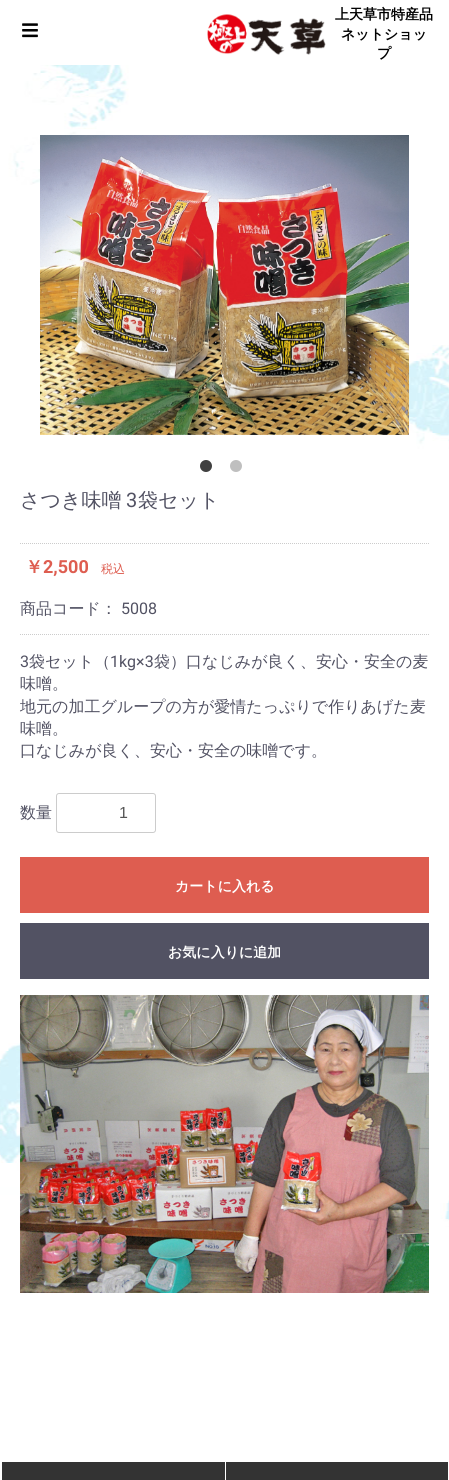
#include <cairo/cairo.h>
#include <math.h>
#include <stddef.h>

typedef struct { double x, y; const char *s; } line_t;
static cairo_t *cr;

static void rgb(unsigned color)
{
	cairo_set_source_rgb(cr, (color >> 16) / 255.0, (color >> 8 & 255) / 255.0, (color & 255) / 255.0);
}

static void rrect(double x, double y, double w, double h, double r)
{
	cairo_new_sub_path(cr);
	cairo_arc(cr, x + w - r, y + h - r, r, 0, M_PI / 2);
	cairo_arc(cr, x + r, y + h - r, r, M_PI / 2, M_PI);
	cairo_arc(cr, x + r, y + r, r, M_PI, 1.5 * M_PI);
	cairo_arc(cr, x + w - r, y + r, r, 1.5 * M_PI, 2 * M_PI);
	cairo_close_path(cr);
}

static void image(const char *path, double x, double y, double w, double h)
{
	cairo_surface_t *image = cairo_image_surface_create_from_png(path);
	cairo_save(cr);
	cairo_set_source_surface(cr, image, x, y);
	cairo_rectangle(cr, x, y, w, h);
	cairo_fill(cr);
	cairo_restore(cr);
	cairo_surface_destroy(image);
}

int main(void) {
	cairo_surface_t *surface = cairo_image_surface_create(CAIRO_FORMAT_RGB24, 449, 1480);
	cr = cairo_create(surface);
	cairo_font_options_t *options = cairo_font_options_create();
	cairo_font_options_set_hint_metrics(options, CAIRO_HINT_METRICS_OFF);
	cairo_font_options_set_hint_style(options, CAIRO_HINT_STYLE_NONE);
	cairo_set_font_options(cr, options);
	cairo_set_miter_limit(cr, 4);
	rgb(0xffffff);
	cairo_paint(cr);
	image("img/1.png", 0, 65, 449, 1415);
	image("img/2.png", 22, 23, 16, 15);
	image("img/3.png", 207, 14, 119, 41);
	image("img/4.png", 40, 135, 369, 300);
	rgb(0x404040);
	cairo_arc(cr, 206, 466, 6, 0, 2 * M_PI);
	cairo_fill(cr);
	rgb(0xbfbfbf);
	cairo_arc(cr, 236, 466, 6, 0, 2 * M_PI);
	cairo_fill(cr);
	cairo_new_path(cr);
	cairo_move_to(cr, 20, 543.5);
	cairo_line_to(cr, 429, 543.5);
	rgb(0xcccccc);
	cairo_set_line_width(cr, 1);
	cairo_set_dash(cr, (double[]){1, 1}, 2, 0);
	cairo_stroke(cr);
	cairo_new_path(cr);
	cairo_move_to(cr, 20, 634.5);
	cairo_line_to(cr, 429, 634.5);
	cairo_stroke(cr);
	rrect(56.5, 793.5, 99, 39, 2.5);
	cairo_set_dash(cr, NULL, 0, 0);
	cairo_stroke(cr);
	rgb(0xde5d50);
	cairo_rectangle(cr, 20, 857, 409, 56);
	cairo_fill(cr);
	rgb(0x525263);
	cairo_rectangle(cr, 20, 923, 409, 56);
	cairo_fill(cr);
	image("img/5.png", 20, 995, 409, 298);
	rgb(0x333333);
	cairo_rectangle(cr, 2, 1462, 223, 18);
	cairo_fill(cr);
	cairo_rectangle(cr, 226, 1462, 222, 18);
	cairo_fill(cr);
	cairo_select_font_face(cr, "WenQuanYi Zen Hei", CAIRO_FONT_SLANT_NORMAL, CAIRO_FONT_WEIGHT_BOLD);
	cairo_set_font_size(cr, 14);
	rgb(0x000000);
	{
		static const line_t items[] = {
			{335, 19, "上天草市特産品"},
			{341, 39, "ネットショッ"},
			{377, 58, "プ"},
		};
		for (size_t i = 0; i < sizeof items / sizeof *items; i++) {
			cairo_move_to(cr, items[i].x, items[i].y);
			cairo_show_text(cr, items[i].s);
		}
	}
	cairo_select_font_face(cr, "WenQuanYi Zen Hei Medium", CAIRO_FONT_SLANT_NORMAL, CAIRO_FONT_WEIGHT_NORMAL);
	cairo_set_font_size(cr, 20);
	rgb(0x525263);
	cairo_move_to(cr, 20, 507);
	cairo_show_text(cr, "さつき味噌");
	cairo_select_font_face(cr, "Roboto", CAIRO_FONT_SLANT_NORMAL, CAIRO_FONT_WEIGHT_NORMAL);
	cairo_move_to(cr, 126, 507);
	cairo_show_text(cr, "3");
	cairo_select_font_face(cr, "WenQuanYi Zen Hei Medium", CAIRO_FONT_SLANT_NORMAL, CAIRO_FONT_WEIGHT_NORMAL);
	cairo_move_to(cr, 138, 507);
	cairo_show_text(cr, "袋セット");
	cairo_select_font_face(cr, "WenQuanYi Zen Hei", CAIRO_FONT_SLANT_NORMAL, CAIRO_FONT_WEIGHT_BOLD);
	cairo_set_font_size(cr, 18);
	rgb(0xde5d50);
	cairo_move_to(cr, 25, 573);
	cairo_show_text(cr, "￥");
	cairo_select_font_face(cr, "Roboto", CAIRO_FONT_SLANT_NORMAL, CAIRO_FONT_WEIGHT_BOLD);
	cairo_move_to(cr, 43, 573);
	cairo_show_text(cr, "2,500");
	cairo_select_font_face(cr, "WenQuanYi Zen Hei Medium", CAIRO_FONT_SLANT_NORMAL, CAIRO_FONT_WEIGHT_NORMAL);
	cairo_set_font_size(cr, 12);
	cairo_move_to(cr, 101, 573);
	cairo_show_text(cr, "税込");
	cairo_set_font_size(cr, 16);
	rgb(0x525263);
	cairo_move_to(cr, 20, 614);
	cairo_show_text(cr, "商品コード：");
	cairo_select_font_face(cr, "Roboto", CAIRO_FONT_SLANT_NORMAL, CAIRO_FONT_WEIGHT_NORMAL);
	cairo_move_to(cr, 121, 614);
	cairo_show_text(cr, "5008");
	cairo_move_to(cr, 20, 667);
	cairo_show_text(cr, "3");
	cairo_select_font_face(cr, "WenQuanYi Zen Hei Medium", CAIRO_FONT_SLANT_NORMAL, CAIRO_FONT_WEIGHT_NORMAL);
	cairo_move_to(cr, 29, 667);
	cairo_show_text(cr, "袋セット（");
	cairo_select_font_face(cr, "Roboto", CAIRO_FONT_SLANT_NORMAL, CAIRO_FONT_WEIGHT_NORMAL);
	cairo_move_to(cr, 110, 667);
	cairo_show_text(cr, "1kg×3");
	cairo_select_font_face(cr, "WenQuanYi Zen Hei Medium", CAIRO_FONT_SLANT_NORMAL, CAIRO_FONT_WEIGHT_NORMAL);
	{
		static const line_t items[] = {
			{154, 667, "袋）口なじみが良く、安心・安全の麦"},
			{20, 689, "味噌。"},
			{20, 712, "地元の加工グループの方が愛情たっぷりで作りあげた麦"},
			{20, 734, "味噌。"},
			{20, 756, "口なじみが良く、安心・安全の味噌です。"},
			{20, 818, "数量"},
		};
		for (size_t i = 0; i < sizeof items / sizeof *items; i++) {
			cairo_move_to(cr, items[i].x, items[i].y);
			cairo_show_text(cr, items[i].s);
		}
	}
	cairo_select_font_face(cr, "Liberation Sans", CAIRO_FONT_SLANT_NORMAL, CAIRO_FONT_WEIGHT_NORMAL);
	rgb(0x555555);
	cairo_move_to(cr, 119, 818);
	cairo_show_text(cr, "1");
	cairo_select_font_face(cr, "WenQuanYi Zen Hei", CAIRO_FONT_SLANT_NORMAL, CAIRO_FONT_WEIGHT_BOLD);
	cairo_set_font_size(cr, 14);
	rgb(0xffffff);
	cairo_move_to(cr, 175, 891);
	cairo_show_text(cr, "カートに入れる");
	cairo_move_to(cr, 168, 957);
	cairo_show_text(cr, "お気に入りに追加");
	cairo_surface_write_to_png(surface, "page.png");
	cairo_font_options_destroy(options);
	cairo_destroy(cr);
	cairo_surface_destroy(surface);
	return 0;
}
